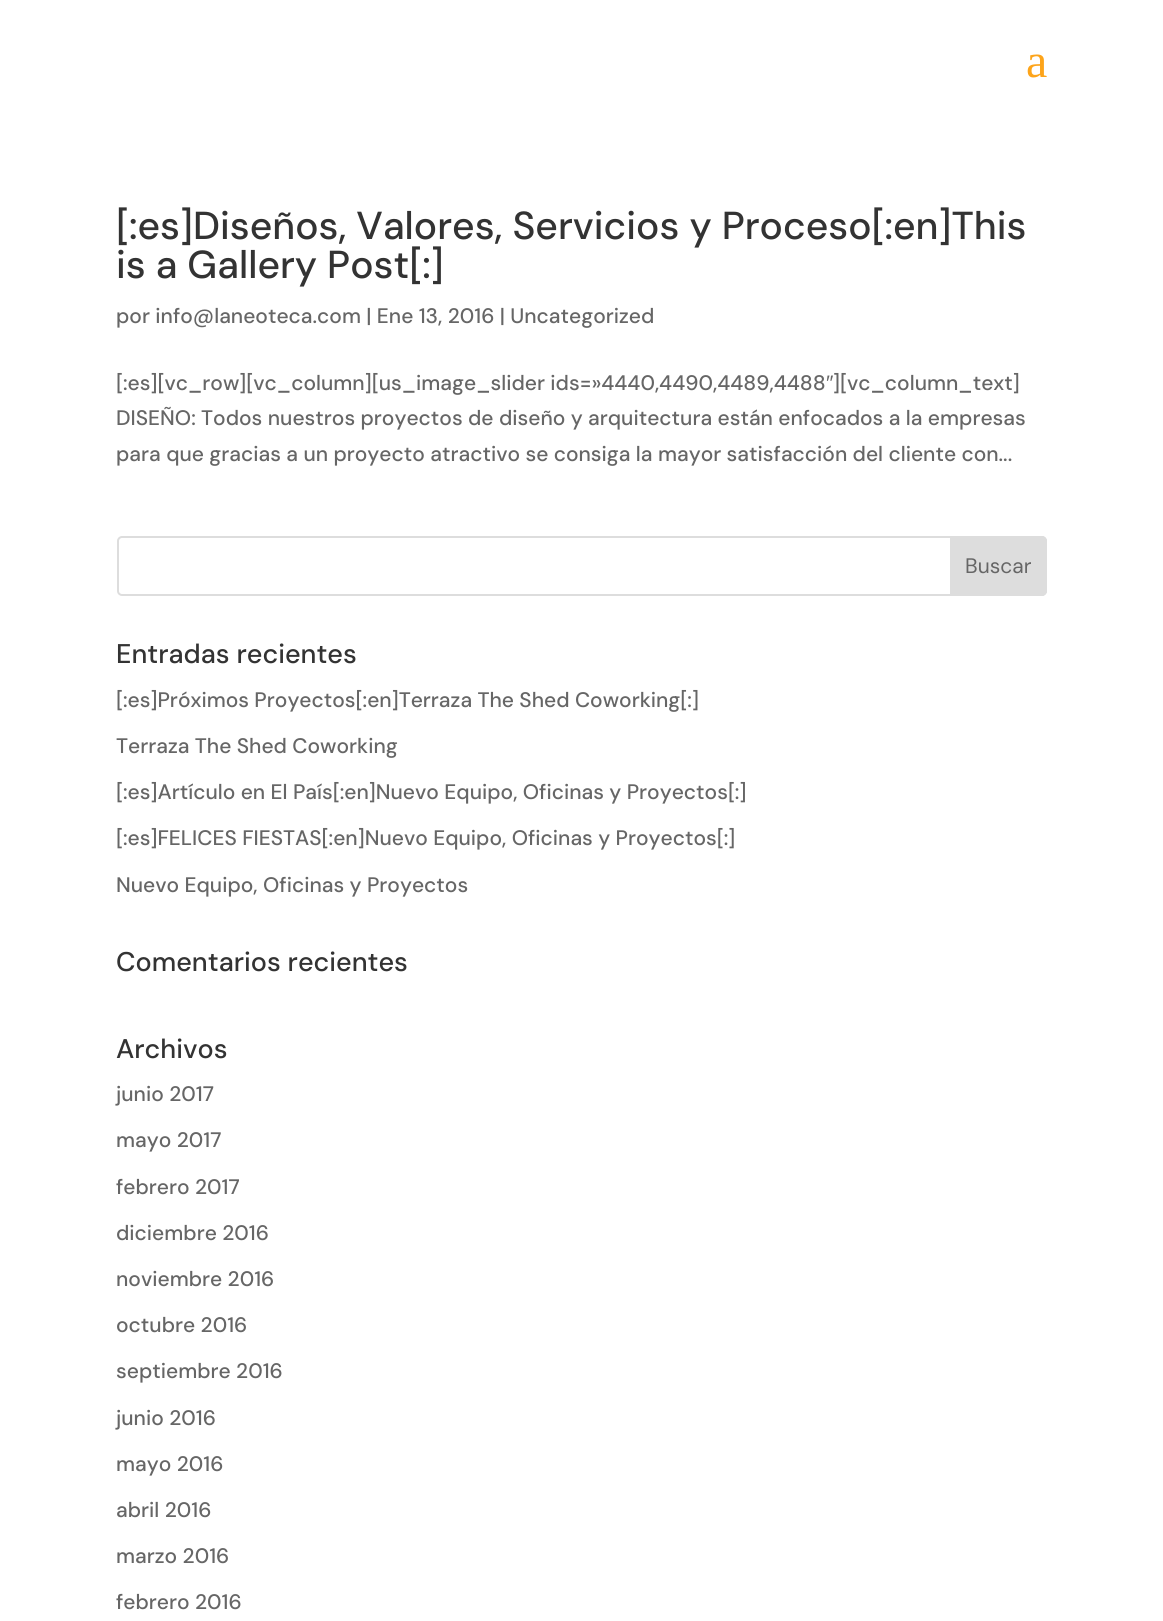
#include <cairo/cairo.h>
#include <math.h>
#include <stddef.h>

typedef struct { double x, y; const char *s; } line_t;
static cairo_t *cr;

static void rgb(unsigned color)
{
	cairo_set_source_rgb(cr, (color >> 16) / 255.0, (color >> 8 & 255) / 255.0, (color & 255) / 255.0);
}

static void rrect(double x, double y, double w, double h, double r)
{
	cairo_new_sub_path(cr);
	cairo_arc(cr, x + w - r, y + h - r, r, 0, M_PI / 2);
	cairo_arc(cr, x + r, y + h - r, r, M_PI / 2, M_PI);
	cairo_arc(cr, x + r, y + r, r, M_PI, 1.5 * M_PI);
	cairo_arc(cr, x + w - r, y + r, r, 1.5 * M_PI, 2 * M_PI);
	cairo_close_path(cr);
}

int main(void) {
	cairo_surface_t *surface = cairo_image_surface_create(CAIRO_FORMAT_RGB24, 1163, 1621);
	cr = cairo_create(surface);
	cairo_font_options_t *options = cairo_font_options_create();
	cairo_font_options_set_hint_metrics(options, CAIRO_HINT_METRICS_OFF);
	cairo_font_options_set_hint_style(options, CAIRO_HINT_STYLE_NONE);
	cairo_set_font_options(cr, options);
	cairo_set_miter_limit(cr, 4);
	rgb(0xffffff);
	cairo_paint(cr);
	rrect(118, 537, 928, 58, 4);
	rgb(0xdddddd);
	cairo_stroke(cr);
	cairo_new_path(cr);
	cairo_move_to(cr, 951, 537);
	cairo_line_to(cr, 1042, 537);
	cairo_curve_to(cr, 1044, 537, 1046, 539, 1046, 541);
	cairo_line_to(cr, 1046, 591);
	cairo_curve_to(cr, 1046, 593, 1044, 595, 1042, 595);
	cairo_line_to(cr, 951, 595);
	cairo_close_path(cr);
	cairo_fill_preserve(cr);
	cairo_stroke(cr);
	cairo_select_font_face(cr, "Liberation Serif", CAIRO_FONT_SLANT_NORMAL, CAIRO_FONT_WEIGHT_NORMAL);
	cairo_set_font_size(cr, 48);
	rgb(0xfda41a);
	cairo_move_to(cr, 1026, 77);
	cairo_show_text(cr, "a");
	cairo_select_font_face(cr, "DM Sans Medium", CAIRO_FONT_SLANT_NORMAL, CAIRO_FONT_WEIGHT_NORMAL);
	cairo_set_font_size(cr, 39);
	rgb(0x333333);
	cairo_move_to(cr, 116, 239);
	cairo_show_text(cr, "[:es]Diseños, Valores, Servicios y Proceso[:en]This");
	cairo_move_to(cr, 116, 278);
	cairo_show_text(cr, "is a Gallery Post[:]");
	cairo_set_font_size(cr, 21);
	rgb(0x666666);
	cairo_move_to(cr, 116, 323);
	cairo_show_text(cr, "por info@laneoteca.com | Ene 13, 2016 | Uncategorized");
	cairo_move_to(cr, 116, 390);
	cairo_show_text(cr, "[:es][vc_row][vc_column][us_image_slider ids=»4440,4490,4489,4488");
	cairo_select_font_face(cr, "Liberation Sans", CAIRO_FONT_SLANT_NORMAL, CAIRO_FONT_WEIGHT_NORMAL);
	cairo_move_to(cr, 826, 390);
	cairo_show_text(cr, "″");
	cairo_select_font_face(cr, "DM Sans Medium", CAIRO_FONT_SLANT_NORMAL, CAIRO_FONT_WEIGHT_NORMAL);
	{
		static const line_t items[] = {
			{833, 390, "][vc_column_text]"},
			{116, 425, "DISEÑO: Todos nuestros proyectos de diseño y arquitectura están enfocados a la empresas"},
			{116, 461, "para que gracias a un proyecto atractivo se consiga la mayor satisfacción del cliente con..."},
		};
		for (size_t i = 0; i < sizeof items / sizeof *items; i++) {
			cairo_move_to(cr, items[i].x, items[i].y);
			cairo_show_text(cr, items[i].s);
		}
	}
	cairo_select_font_face(cr, "DM Sans", CAIRO_FONT_SLANT_NORMAL, CAIRO_FONT_WEIGHT_NORMAL);
	cairo_move_to(cr, 965, 573);
	cairo_show_text(cr, "Buscar");
	cairo_select_font_face(cr, "DM Sans Medium", CAIRO_FONT_SLANT_NORMAL, CAIRO_FONT_WEIGHT_NORMAL);
	cairo_set_font_size(cr, 27);
	rgb(0x333333);
	cairo_move_to(cr, 116, 663);
	cairo_show_text(cr, "Entradas recientes");
	cairo_set_font_size(cr, 21);
	rgb(0x666666);
	{
		static const line_t items[] = {
			{116, 707, "[:es]Próximos Proyectos[:en]Terraza The Shed Coworking[:]"},
			{116, 753, "Terraza The Shed Coworking"},
			{116, 799, "[:es]Artículo en El País[:en]Nuevo Equipo, Oficinas y Proyectos[:]"},
			{116, 845, "[:es]FELICES FIESTAS[:en]Nuevo Equipo, Oficinas y Proyectos[:]"},
			{116, 892, "Nuevo Equipo, Oficinas y Proyectos"},
		};
		for (size_t i = 0; i < sizeof items / sizeof *items; i++) {
			cairo_move_to(cr, items[i].x, items[i].y);
			cairo_show_text(cr, items[i].s);
		}
	}
	cairo_set_font_size(cr, 27);
	rgb(0x333333);
	cairo_move_to(cr, 116, 971);
	cairo_show_text(cr, "Comentarios recientes");
	cairo_move_to(cr, 116, 1058);
	cairo_show_text(cr, "Archivos");
	cairo_set_font_size(cr, 21);
	rgb(0x666666);
	{
		static const line_t items[] = {
			{116, 1101, "junio 2017"},
			{116, 1147, "mayo 2017"},
			{116, 1194, "febrero 2017"},
			{116, 1240, "diciembre 2016"},
			{116, 1286, "noviembre 2016"},
			{116, 1332, "octubre 2016"},
			{116, 1378, "septiembre 2016"},
			{116, 1425, "junio 2016"},
			{116, 1471, "mayo 2016"},
			{116, 1517, "abril 2016"},
			{116, 1563, "marzo 2016"},
			{116, 1609, "febrero 2016"},
		};
		for (size_t i = 0; i < sizeof items / sizeof *items; i++) {
			cairo_move_to(cr, items[i].x, items[i].y);
			cairo_show_text(cr, items[i].s);
		}
	}
	cairo_surface_write_to_png(surface, "page.png");
	cairo_font_options_destroy(options);
	cairo_destroy(cr);
	cairo_surface_destroy(surface);
	return 0;
}
